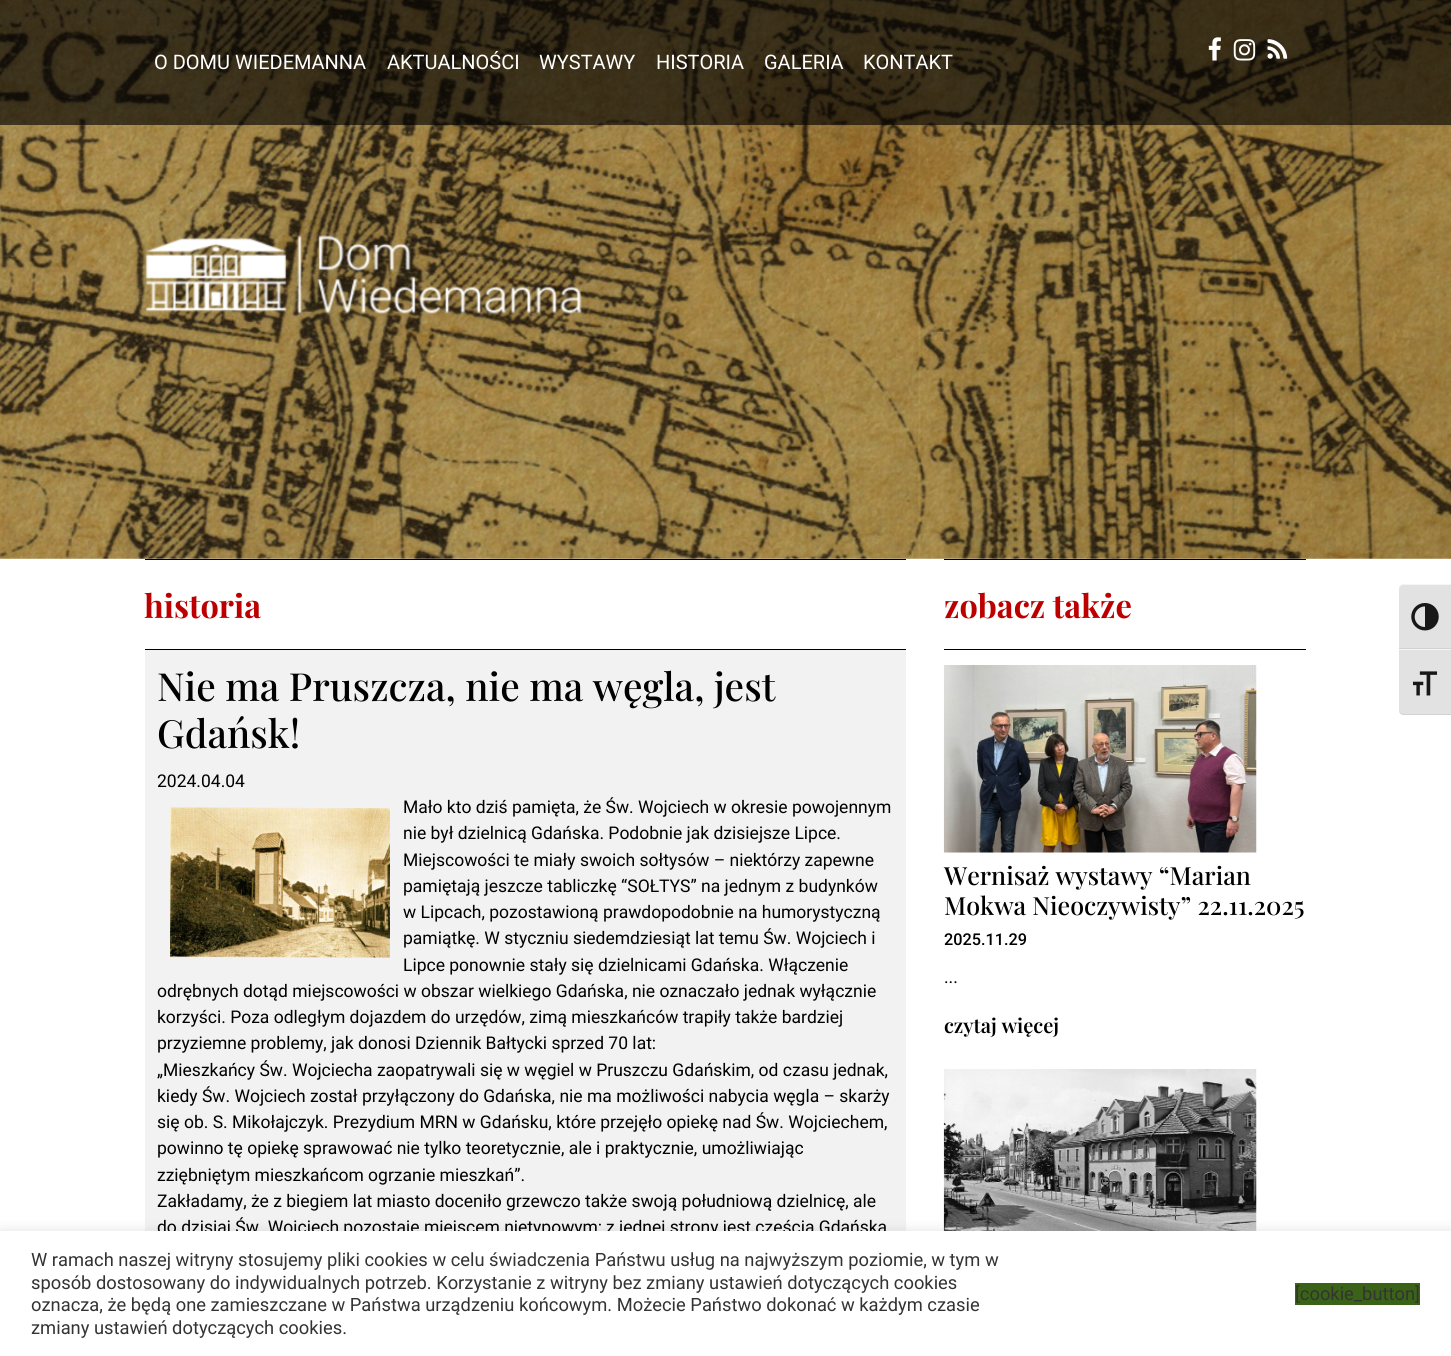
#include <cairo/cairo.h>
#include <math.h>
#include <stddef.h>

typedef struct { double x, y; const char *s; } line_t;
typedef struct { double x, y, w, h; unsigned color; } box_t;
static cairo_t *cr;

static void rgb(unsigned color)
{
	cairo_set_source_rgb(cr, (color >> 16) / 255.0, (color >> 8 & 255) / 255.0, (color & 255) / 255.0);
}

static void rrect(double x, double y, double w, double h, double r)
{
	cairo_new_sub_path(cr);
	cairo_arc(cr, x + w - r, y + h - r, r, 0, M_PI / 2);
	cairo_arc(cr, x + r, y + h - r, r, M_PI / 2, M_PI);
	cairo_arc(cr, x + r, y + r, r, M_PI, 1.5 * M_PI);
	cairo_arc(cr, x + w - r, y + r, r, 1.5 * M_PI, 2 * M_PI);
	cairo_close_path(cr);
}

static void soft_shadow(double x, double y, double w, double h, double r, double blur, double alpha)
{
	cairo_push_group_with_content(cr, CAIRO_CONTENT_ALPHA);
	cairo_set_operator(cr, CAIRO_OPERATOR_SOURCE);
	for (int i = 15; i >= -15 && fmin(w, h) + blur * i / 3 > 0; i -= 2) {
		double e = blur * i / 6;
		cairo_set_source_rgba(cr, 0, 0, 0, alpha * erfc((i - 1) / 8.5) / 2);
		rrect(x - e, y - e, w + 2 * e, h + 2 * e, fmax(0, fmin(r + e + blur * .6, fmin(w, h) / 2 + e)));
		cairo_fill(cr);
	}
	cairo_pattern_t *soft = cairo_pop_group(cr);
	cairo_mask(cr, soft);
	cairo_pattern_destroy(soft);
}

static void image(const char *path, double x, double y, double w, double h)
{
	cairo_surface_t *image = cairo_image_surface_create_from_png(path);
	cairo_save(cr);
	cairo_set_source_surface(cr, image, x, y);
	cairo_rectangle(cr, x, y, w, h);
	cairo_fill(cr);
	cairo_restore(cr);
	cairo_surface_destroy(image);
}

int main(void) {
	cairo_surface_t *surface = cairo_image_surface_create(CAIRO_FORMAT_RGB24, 1451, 1356);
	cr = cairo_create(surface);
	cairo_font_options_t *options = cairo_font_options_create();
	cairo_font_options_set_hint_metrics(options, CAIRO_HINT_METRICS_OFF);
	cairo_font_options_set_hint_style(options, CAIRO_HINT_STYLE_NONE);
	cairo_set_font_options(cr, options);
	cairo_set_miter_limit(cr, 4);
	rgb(0xffffff);
	cairo_paint(cr);
	image("img/1.png", 0, 0, 1451, 559);
	image("img/2.png", 145, 235, 437, 79);
	cairo_set_source_rgba(cr, 0, 0, 0, 0.63);
	cairo_rectangle(cr, 0, 0, 1451, 125);
	cairo_fill(cr);
	image("img/3.png", 1208, 37, 13, 24);
	image("img/4.png", 1233, 39, 23, 22);
	image("img/5.png", 1267, 39, 21, 20);
	{
		static const box_t items[] = {
			{145, 559, 761, 1, 0x000000},
			{145, 649, 761, 1, 0x000000},
			{145, 650, 761, 581, 0xf2f2f2},
		};
		for (size_t i = 0; i < sizeof items / sizeof *items; i++) {
			rgb(items[i].color);
			cairo_rectangle(cr, items[i].x, items[i].y, items[i].w, items[i].h);
			cairo_fill(cr);
		}
	}
	image("img/6.png", 170, 807, 220, 151);
	rgb(0x000000);
	cairo_rectangle(cr, 944, 559, 362, 1);
	cairo_fill(cr);
	cairo_rectangle(cr, 944, 649, 362, 1);
	cairo_fill(cr);
	image("img/7.png", 943, 665, 314, 188);
	image("img/8.png", 943, 1069, 314, 162);
	rgb(0xe2e2e2);
	cairo_new_path(cr);
	cairo_move_to(cr, 1404, 584);
	cairo_line_to(cr, 1451, 584);
	cairo_line_to(cr, 1451, 649);
	cairo_line_to(cr, 1399, 649);
	cairo_line_to(cr, 1399, 589);
	cairo_curve_to(cr, 1399, 586, 1401, 584, 1404, 584);
	cairo_close_path(cr);
	cairo_fill(cr);
	rgb(0xf5f5f5);
	cairo_new_path(cr);
	cairo_move_to(cr, 1404, 584);
	cairo_curve_to(cr, 1401, 584, 1399, 586, 1399, 589);
	cairo_curve_to(cr, 1399, 587, 1401, 585, 1404, 585);
	cairo_line_to(cr, 1451, 585);
	cairo_line_to(cr, 1451, 584);
	cairo_close_path(cr);
	cairo_fill(cr);
	rgb(0xd2d2d2);
	cairo_rectangle(cr, 1399, 648, 52, 1);
	cairo_fill(cr);
	image("img/9.png", 1411, 603, 28, 28);
	rgb(0xe2e2e2);
	cairo_new_path(cr);
	cairo_move_to(cr, 1399, 649);
	cairo_line_to(cr, 1451, 649);
	cairo_line_to(cr, 1451, 715);
	cairo_line_to(cr, 1404, 715);
	cairo_curve_to(cr, 1401, 715, 1399, 713, 1399, 710);
	cairo_close_path(cr);
	cairo_fill(cr);
	rgb(0xf5f5f5);
	cairo_rectangle(cr, 1399, 649, 52, 1);
	cairo_fill(cr);
	rgb(0xd2d2d2);
	cairo_new_path(cr);
	cairo_move_to(cr, 1451, 715);
	cairo_line_to(cr, 1451, 714);
	cairo_line_to(cr, 1404, 714);
	cairo_curve_to(cr, 1401, 714, 1399, 712, 1399, 710);
	cairo_curve_to(cr, 1399, 713, 1401, 715, 1404, 715);
	cairo_close_path(cr);
	cairo_fill(cr);
	image("img/10.png", 1412, 671, 26, 25);
	rgb(0xacabab);
	soft_shadow(0, 1230, 1451, 125, 0, 6, 0.3);
	cairo_select_font_face(cr, "Roboto", CAIRO_FONT_SLANT_NORMAL, CAIRO_FONT_WEIGHT_NORMAL);
	cairo_set_font_size(cr, 20);
	rgb(0xffffff);
	{
		static const line_t items[] = {
			{154, 69, "O DOMU WIEDEMANNA"},
			{387, 69, "AKTUALNOŚCI"},
			{539, 69, "WYSTAWY"},
			{656, 69, "HISTORIA"},
			{764, 69, "GALERIA"},
			{863, 69, "KONTAKT"},
		};
		for (size_t i = 0; i < sizeof items / sizeof *items; i++) {
			cairo_move_to(cr, items[i].x, items[i].y);
			cairo_show_text(cr, items[i].s);
		}
	}
	cairo_select_font_face(cr, "Playfair Display", CAIRO_FONT_SLANT_NORMAL, CAIRO_FONT_WEIGHT_BOLD);
	cairo_set_font_size(cr, 32.5);
	rgb(0xbc0000);
	cairo_move_to(cr, 144, 618);
	cairo_show_text(cr, "historia");
	cairo_select_font_face(cr, "Playfair Display Medium", CAIRO_FONT_SLANT_NORMAL, CAIRO_FONT_WEIGHT_NORMAL);
	cairo_set_font_size(cr, 38.75);
	rgb(0x000000);
	cairo_move_to(cr, 157, 701);
	cairo_show_text(cr, "Nie ma Pruszcza, nie ma węgla, jest");
	cairo_move_to(cr, 157, 748);
	cairo_show_text(cr, "Gdańsk!");
	cairo_select_font_face(cr, "Roboto", CAIRO_FONT_SLANT_NORMAL, CAIRO_FONT_WEIGHT_NORMAL);
	cairo_set_font_size(cr, 17.5);
	{
		static const line_t items[] = {
			{157, 787, "2024.04.04"},
			{403, 813, "Mało kto dziś pamięta, że Św. Wojciech w okresie powojennym"},
			{403, 839, "nie był dzielnicą Gdańska. Podobnie jak dzisiejsze Lipce."},
			{403, 866, "Miejscowości te miały swoich sołtysów – niektórzy zapewne"},
			{403, 892, "pamiętają jeszcze tabliczkę “SOŁTYS” na jednym z budynków"},
			{403, 918, "w Lipcach, pozostawioną prawdopodobnie na humorystyczną"},
			{403, 944, "pamiątkę. W styczniu siedemdziesiąt lat temu Św. Wojciech i"},
			{403, 971, "Lipce ponownie stały się dzielnicami Gdańska. Włączenie"},
			{157, 997, "odrębnych dotąd miejscowości w obszar wielkiego Gdańska, nie oznaczało jednak wyłącznie"},
			{157, 1023, "korzyści. Poza odległym dojazdem do urzędów, zimą mieszkańców trapiły także bardziej"},
			{157, 1049, "przyziemne problemy, jak donosi Dziennik Bałtycki sprzed 70 lat:"},
			{157, 1076, "„Mieszkańcy Św. Wojciecha zaopatrywali się w węgiel w Pruszczu Gdańskim, od czasu jednak,"},
			{157, 1102, "kiedy Św. Wojciech został przyłączony do Gdańska, nie ma możliwości nabycia węgla – skarży"},
			{157, 1128, "się ob. S. Mikołajczyk. Prezydium MRN w Gdańsku, które przejęło opiekę nad Św. Wojciechem,"},
			{157, 1154, "powinno tę opiekę sprawować nie tylko teoretycznie, ale i praktycznie, umożliwiając"},
			{157, 1181, "zziębniętym mieszkańcom ogrzanie mieszkań”."},
			{157, 1207, "Zakładamy, że z biegiem lat miasto doceniło grzewczo także swoją południową dzielnicę, ale"},
			{157, 1233, "do dzisiaj Św. Wojciech pozostaje miejscem nietypowym; z jednej strony jest częścią Gdańska"},
		};
		for (size_t i = 0; i < sizeof items / sizeof *items; i++) {
			cairo_move_to(cr, items[i].x, items[i].y);
			cairo_show_text(cr, items[i].s);
		}
	}
	cairo_select_font_face(cr, "Playfair Display", CAIRO_FONT_SLANT_NORMAL, CAIRO_FONT_WEIGHT_BOLD);
	cairo_set_font_size(cr, 32.5);
	rgb(0xbc0000);
	cairo_move_to(cr, 944, 618);
	cairo_show_text(cr, "zobacz także");
	cairo_select_font_face(cr, "Playfair Display Medium", CAIRO_FONT_SLANT_NORMAL, CAIRO_FONT_WEIGHT_NORMAL);
	cairo_set_font_size(cr, 25);
	rgb(0x000000);
	cairo_move_to(cr, 944, 885);
	cairo_show_text(cr, "Wernisaż wystawy “Marian");
	cairo_move_to(cr, 944, 915);
	cairo_show_text(cr, "Mokwa Nieoczywisty” 22.11.2025");
	cairo_select_font_face(cr, "Roboto Medium", CAIRO_FONT_SLANT_NORMAL, CAIRO_FONT_WEIGHT_NORMAL);
	cairo_set_font_size(cr, 16.25);
	cairo_move_to(cr, 944, 945);
	cairo_show_text(cr, "2025.11.29");
	cairo_select_font_face(cr, "Roboto", CAIRO_FONT_SLANT_NORMAL, CAIRO_FONT_WEIGHT_NORMAL);
	cairo_set_font_size(cr, 17.5);
	cairo_move_to(cr, 944, 983);
	cairo_show_text(cr, "...");
	cairo_select_font_face(cr, "Playfair Display SemiBold", CAIRO_FONT_SLANT_NORMAL, CAIRO_FONT_WEIGHT_NORMAL);
	cairo_set_font_size(cr, 20);
	cairo_move_to(cr, 944, 1033);
	cairo_show_text(cr, "czytaj więcej");
	rgb(0xffffff);
	cairo_rectangle(cr, 0, 1231, 1451, 125);
	cairo_fill(cr);
	cairo_select_font_face(cr, "Roboto", CAIRO_FONT_SLANT_NORMAL, CAIRO_FONT_WEIGHT_NORMAL);
	cairo_set_font_size(cr, 18.33);
	rgb(0x333333);
	{
		static const line_t items[] = {
			{31, 1266, "W ramach naszej witryny stosujemy pliki cookies w celu świadczenia Państwu usług na najwyższym poziomie, w tym w"},
			{31, 1289, "sposób dostosowany do indywidualnych potrzeb. Korzystanie z witryny bez zmiany ustawień dotyczących cookies"},
			{31, 1311, "oznacza, że będą one zamieszczane w Państwa urządzeniu końcowym. Możecie Państwo dokonać w każdym czasie"},
			{31, 1334, "zmiany ustawień dotyczących cookies."},
		};
		for (size_t i = 0; i < sizeof items / sizeof *items; i++) {
			cairo_move_to(cr, items[i].x, items[i].y);
			cairo_show_text(cr, items[i].s);
		}
	}
	rgb(0x3b6318);
	cairo_rectangle(cr, 1295, 1283, 125, 22);
	cairo_fill(cr);
	rgb(0x333333);
	cairo_move_to(cr, 1295, 1300);
	cairo_show_text(cr, "[cookie_button]");
	cairo_surface_write_to_png(surface, "page.png");
	cairo_font_options_destroy(options);
	cairo_destroy(cr);
	cairo_surface_destroy(surface);
	return 0;
}
